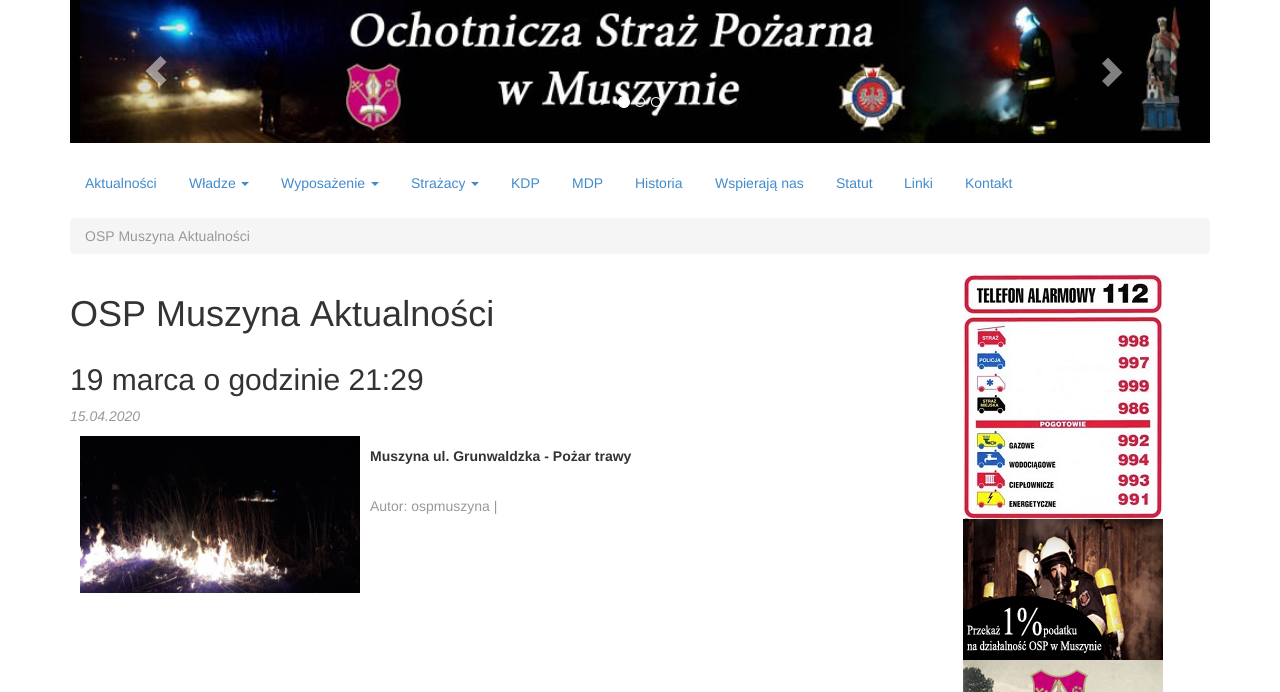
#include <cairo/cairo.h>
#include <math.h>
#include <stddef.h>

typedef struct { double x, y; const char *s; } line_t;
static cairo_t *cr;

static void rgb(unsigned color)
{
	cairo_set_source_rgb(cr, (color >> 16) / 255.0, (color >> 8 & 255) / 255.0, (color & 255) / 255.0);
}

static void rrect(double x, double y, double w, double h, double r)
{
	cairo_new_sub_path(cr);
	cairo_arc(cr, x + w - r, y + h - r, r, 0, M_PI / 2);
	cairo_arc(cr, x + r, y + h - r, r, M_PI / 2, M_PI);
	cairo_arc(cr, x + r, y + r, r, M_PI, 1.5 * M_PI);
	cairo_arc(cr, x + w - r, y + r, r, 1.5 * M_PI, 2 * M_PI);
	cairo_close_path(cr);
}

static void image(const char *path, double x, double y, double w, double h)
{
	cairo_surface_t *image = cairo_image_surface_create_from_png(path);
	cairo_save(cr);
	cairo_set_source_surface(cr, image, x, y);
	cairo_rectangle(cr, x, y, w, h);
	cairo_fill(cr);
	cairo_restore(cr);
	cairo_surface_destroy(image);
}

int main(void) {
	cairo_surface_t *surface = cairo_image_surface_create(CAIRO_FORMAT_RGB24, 1280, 692);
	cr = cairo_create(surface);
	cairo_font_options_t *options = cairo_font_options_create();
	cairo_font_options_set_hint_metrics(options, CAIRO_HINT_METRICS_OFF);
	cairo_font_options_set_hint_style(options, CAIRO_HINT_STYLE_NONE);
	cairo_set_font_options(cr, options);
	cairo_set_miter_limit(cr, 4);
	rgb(0xffffff);
	cairo_paint(cr);
	image("img/1.png", 70, 0, 1140, 143);
	cairo_set_source_rgba(cr, 1, 1, 1, 0.5);
	cairo_new_path(cr);
	cairo_move_to(cr, 145.5, 71);
	cairo_line_to(cr, 160.5, 86);
	cairo_line_to(cr, 166.5, 80);
	cairo_line_to(cr, 157.5, 71);
	cairo_line_to(cr, 166.5, 62);
	cairo_line_to(cr, 160.5, 56);
	cairo_close_path(cr);
	cairo_fill(cr);
	rgb(0x808080);
	cairo_new_path(cr);
	cairo_move_to(cr, 1102, 81);
	cairo_line_to(cr, 1110.5, 72.5);
	cairo_line_to(cr, 1102, 63.5);
	cairo_line_to(cr, 1108, 57.5);
	cairo_line_to(cr, 1122.5, 72.5);
	cairo_line_to(cr, 1108, 87);
	cairo_close_path(cr);
	cairo_fill(cr);
	rgb(0xffffff);
	cairo_arc(cr, 624, 102, 5.5, 0, 2 * M_PI);
	cairo_fill_preserve(cr);
	cairo_set_line_width(cr, 1);
	cairo_stroke(cr);
	cairo_arc(cr, 640, 102, 4.5, 0, 2 * M_PI);
	cairo_stroke(cr);
	cairo_arc(cr, 656, 102, 4.5, 0, 2 * M_PI);
	cairo_stroke(cr);
	rgb(0x428bca);
	cairo_new_path(cr);
	cairo_move_to(cr, 241, 182);
	cairo_line_to(cr, 249, 182);
	cairo_line_to(cr, 245, 186);
	cairo_close_path(cr);
	cairo_fill(cr);
	cairo_new_path(cr);
	cairo_move_to(cr, 371, 182);
	cairo_line_to(cr, 379, 182);
	cairo_line_to(cr, 375, 186);
	cairo_close_path(cr);
	cairo_fill(cr);
	cairo_new_path(cr);
	cairo_move_to(cr, 471, 182);
	cairo_line_to(cr, 479, 182);
	cairo_line_to(cr, 475, 186);
	cairo_close_path(cr);
	cairo_fill(cr);
	rgb(0xf5f5f5);
	rrect(70, 218, 1140, 36, 4);
	cairo_fill(cr);
	image("img/2.png", 80, 436, 280, 157);
	image("img/3.png", 963, 274, 200, 245);
	image("img/4.png", 963, 519, 200, 141);
	image("img/5.png", 963, 660, 200, 32);
	cairo_select_font_face(cr, "Liberation Sans", CAIRO_FONT_SLANT_NORMAL, CAIRO_FONT_WEIGHT_NORMAL);
	cairo_set_font_size(cr, 14);
	rgb(0x428bca);
	{
		static const line_t items[] = {
			{85, 188, "Aktualności"},
			{189, 188, "Władze"},
			{281, 188, "Wyposażenie"},
			{411, 188, "Strażacy"},
			{511, 188, "KDP"},
			{572, 188, "MDP"},
			{635, 188, "Historia"},
			{715, 188, "Wspierają nas"},
			{836, 188, "Statut"},
			{904, 188, "Linki"},
			{965, 188, "Kontakt"},
		};
		for (size_t i = 0; i < sizeof items / sizeof *items; i++) {
			cairo_move_to(cr, items[i].x, items[i].y);
			cairo_show_text(cr, items[i].s);
		}
	}
	rgb(0x999999);
	cairo_move_to(cr, 85, 241);
	cairo_show_text(cr, "OSP Muszyna Aktualności");
	cairo_set_font_size(cr, 36);
	rgb(0x333333);
	cairo_move_to(cr, 70, 326);
	cairo_show_text(cr, "OSP Muszyna Aktualności");
	cairo_set_font_size(cr, 30);
	cairo_move_to(cr, 70, 390);
	cairo_show_text(cr, "19 marca o godzinie 21:29");
	cairo_select_font_face(cr, "Liberation Sans", CAIRO_FONT_SLANT_ITALIC, CAIRO_FONT_WEIGHT_NORMAL);
	cairo_set_font_size(cr, 14);
	rgb(0x999999);
	cairo_move_to(cr, 70, 421);
	cairo_show_text(cr, "15.04.2020");
	cairo_select_font_face(cr, "Liberation Sans", CAIRO_FONT_SLANT_NORMAL, CAIRO_FONT_WEIGHT_BOLD);
	rgb(0x333333);
	cairo_move_to(cr, 370, 461);
	cairo_show_text(cr, "Muszyna ul. Grunwaldzka - Pożar trawy");
	cairo_select_font_face(cr, "Liberation Sans", CAIRO_FONT_SLANT_NORMAL, CAIRO_FONT_WEIGHT_NORMAL);
	rgb(0x999999);
	cairo_move_to(cr, 370, 511);
	cairo_show_text(cr, "Autor: ospmuszyna |");
	cairo_surface_write_to_png(surface, "page.png");
	cairo_font_options_destroy(options);
	cairo_destroy(cr);
	cairo_surface_destroy(surface);
	return 0;
}
